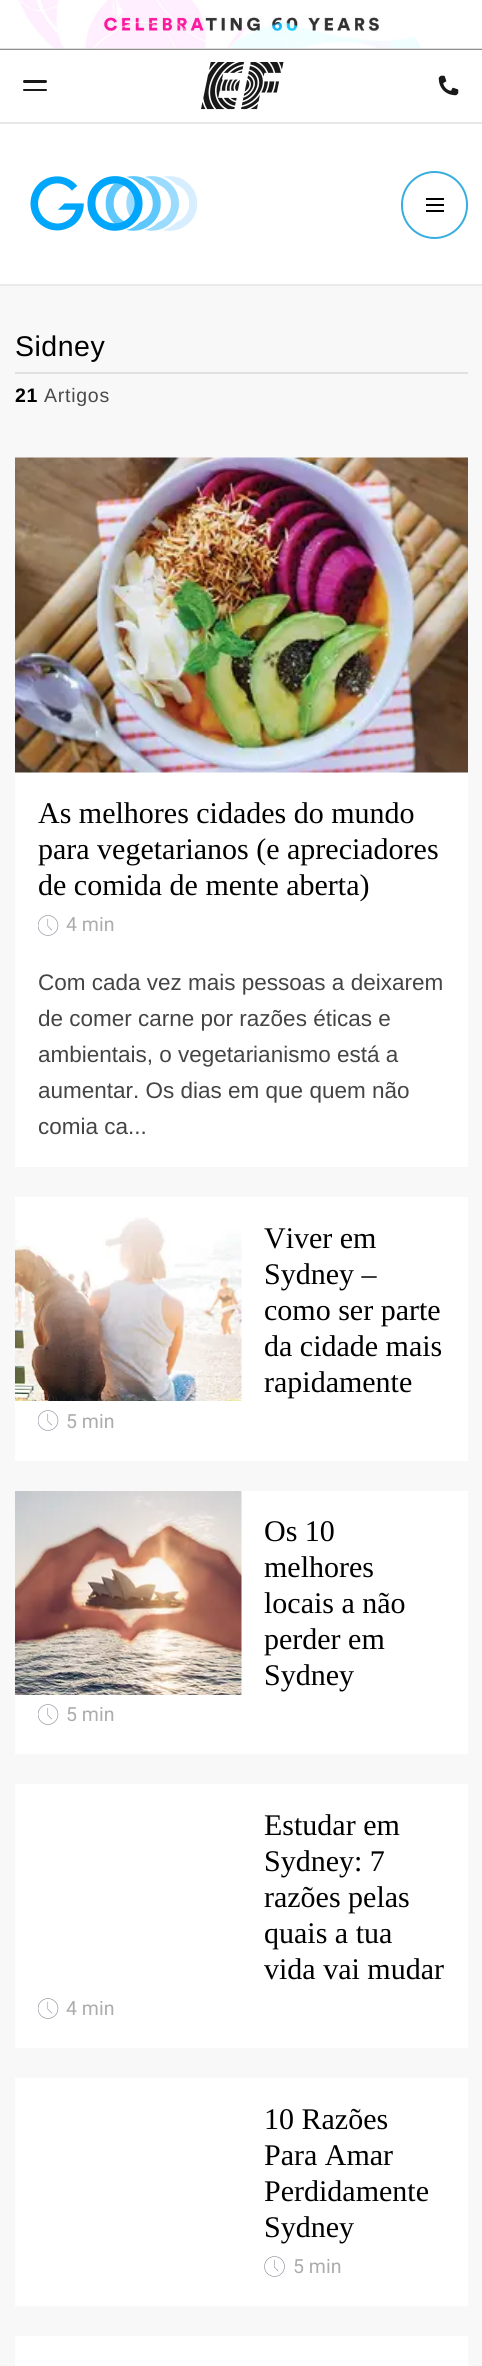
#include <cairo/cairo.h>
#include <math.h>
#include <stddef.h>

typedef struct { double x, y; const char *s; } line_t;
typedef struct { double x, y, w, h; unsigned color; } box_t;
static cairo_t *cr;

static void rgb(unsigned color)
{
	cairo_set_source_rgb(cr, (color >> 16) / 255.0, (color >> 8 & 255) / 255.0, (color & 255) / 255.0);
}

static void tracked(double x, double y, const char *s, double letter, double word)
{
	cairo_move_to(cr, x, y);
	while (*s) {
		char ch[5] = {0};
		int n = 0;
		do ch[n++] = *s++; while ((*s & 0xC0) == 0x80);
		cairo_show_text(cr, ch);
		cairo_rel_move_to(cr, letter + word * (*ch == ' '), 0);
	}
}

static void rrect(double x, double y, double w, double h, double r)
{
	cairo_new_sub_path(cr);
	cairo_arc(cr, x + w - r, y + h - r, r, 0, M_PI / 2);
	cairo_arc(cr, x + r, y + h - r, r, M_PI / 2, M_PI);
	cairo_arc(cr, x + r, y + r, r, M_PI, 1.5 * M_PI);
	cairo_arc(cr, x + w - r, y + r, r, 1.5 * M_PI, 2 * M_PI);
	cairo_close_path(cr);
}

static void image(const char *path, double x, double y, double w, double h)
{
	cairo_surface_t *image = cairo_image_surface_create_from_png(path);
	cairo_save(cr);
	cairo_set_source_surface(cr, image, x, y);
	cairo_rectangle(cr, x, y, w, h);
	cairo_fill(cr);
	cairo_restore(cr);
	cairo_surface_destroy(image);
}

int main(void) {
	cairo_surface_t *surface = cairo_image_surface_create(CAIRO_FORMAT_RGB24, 482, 2366);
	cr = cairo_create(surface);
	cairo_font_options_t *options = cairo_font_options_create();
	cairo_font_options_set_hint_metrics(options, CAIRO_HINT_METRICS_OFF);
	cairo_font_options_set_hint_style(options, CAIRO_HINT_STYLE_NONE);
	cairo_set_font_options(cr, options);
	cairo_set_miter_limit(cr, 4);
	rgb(0xffffff);
	cairo_paint(cr);
	rgb(0xe8e8e8);
	cairo_rectangle(cr, 0, 122, 482, 2);
	cairo_fill(cr);
	rgb(0x474747);
	cairo_rectangle(cr, 0, 49, 482, 1);
	cairo_fill(cr);
	image("img/1.png", 0, 0, 482, 50);
	rgb(0x191919);
	rrect(23, 80, 24, 3, 1.5);
	cairo_fill(cr);
	rrect(23, 89, 24, 2, 1);
	cairo_fill(cr);
	image("img/2.png", 201, 62, 83, 48);
	image("img/3.png", 438, 75, 21, 21);
	image("img/4.png", 30, 176, 168, 55);
	rrect(402, 172, 65, 66, 32.5);
	rgb(0x38addf);
	cairo_stroke(cr);
	{
		static const box_t items[] = {
			{426, 204, 18, 2, 0x000000},
			{426, 198, 18, 2, 0x000000},
			{426, 210, 18, 2, 0x000000},
			{0, 286, 482, 2080, 0xf8f8f9},
			{0, 284, 482, 2, 0xebebeb},
			{15, 372, 453, 2, 0xe0e0e0},
			{15, 772, 453, 395, 0xffffff},
		};
		for (size_t i = 0; i < sizeof items / sizeof *items; i++) {
			rgb(items[i].color);
			cairo_rectangle(cr, items[i].x, items[i].y, items[i].w, items[i].h);
			cairo_fill(cr);
		}
	}
	image("img/5.png", 15, 457, 453, 316);
	image("img/6.png", 38, 915, 21, 21);
	cairo_rectangle(cr, 15, 1197, 453, 264);
	cairo_fill(cr);
	image("img/7.png", 15, 1217, 227, 184);
	image("img/6.png", 38, 1410, 21, 21);
	cairo_rectangle(cr, 15, 1491, 453, 263);
	cairo_fill(cr);
	image("img/8.png", 15, 1491, 227, 204);
	image("img/6.png", 38, 1704, 21, 21);
	cairo_rectangle(cr, 15, 1784, 453, 264);
	cairo_fill(cr);
	image("img/6.png", 38, 1998, 21, 21);
	cairo_rectangle(cr, 15, 2078, 453, 228);
	cairo_fill(cr);
	image("img/9.png", 264, 2256, 21, 21);
	cairo_rectangle(cr, 15, 2336, 453, 30);
	cairo_fill(cr);
	cairo_select_font_face(cr, "Liberation Sans", CAIRO_FONT_SLANT_NORMAL, CAIRO_FONT_WEIGHT_NORMAL);
	cairo_set_font_size(cr, 28.5);
	rgb(0x000000);
	tracked(15, 356, "Sidney", 0.5, 0);
	cairo_select_font_face(cr, "Liberation Sans", CAIRO_FONT_SLANT_NORMAL, CAIRO_FONT_WEIGHT_BOLD);
	cairo_set_font_size(cr, 19.5);
	tracked(15, 402, "21", 0.75, 0);
	cairo_select_font_face(cr, "Liberation Sans", CAIRO_FONT_SLANT_NORMAL, CAIRO_FONT_WEIGHT_NORMAL);
	rgb(0x4a4a4a);
	tracked(44, 402, "Artigos", 0.75, 0);
	cairo_select_font_face(cr, "Liberation Serif", CAIRO_FONT_SLANT_NORMAL, CAIRO_FONT_WEIGHT_NORMAL);
	cairo_set_font_size(cr, 30);
	rgb(0x000000);
	{
		static const line_t items[] = {
			{38, 823, "As melhores cidades do mundo"},
			{38, 859, "para vegetarianos (e apreciadores"},
			{38, 895, "de comida de mente aberta)"},
		};
		for (size_t i = 0; i < sizeof items / sizeof *items; i++) {
			cairo_move_to(cr, items[i].x, items[i].y);
			cairo_show_text(cr, items[i].s);
		}
	}
	cairo_select_font_face(cr, "Roboto", CAIRO_FONT_SLANT_NORMAL, CAIRO_FONT_WEIGHT_NORMAL);
	cairo_set_font_size(cr, 19.5);
	rgb(0xacacac);
	cairo_move_to(cr, 66, 931);
	cairo_show_text(cr, "4 min");
	cairo_select_font_face(cr, "Liberation Sans", CAIRO_FONT_SLANT_NORMAL, CAIRO_FONT_WEIGHT_NORMAL);
	cairo_set_font_size(cr, 22.5);
	rgb(0x444444);
	{
		static const line_t items[] = {
			{38, 990, "Com cada vez mais pessoas a deixarem"},
			{38, 1026, "de comer carne por razões éticas e"},
			{38, 1062, "ambientais, o vegetarianismo está a"},
			{38, 1098, "aumentar. Os dias em que quem não"},
			{38, 1134, "comia ca..."},
		};
		for (size_t i = 0; i < sizeof items / sizeof *items; i++) {
			cairo_move_to(cr, items[i].x, items[i].y);
			cairo_show_text(cr, items[i].s);
		}
	}
	cairo_select_font_face(cr, "Liberation Serif", CAIRO_FONT_SLANT_NORMAL, CAIRO_FONT_WEIGHT_NORMAL);
	cairo_set_font_size(cr, 30);
	rgb(0x000000);
	{
		static const line_t items[] = {
			{264, 1248, "Viver em"},
			{264, 1284, "Sydney –"},
			{264, 1320, "como ser parte"},
			{264, 1356, "da cidade mais"},
			{264, 1392, "rapidamente"},
		};
		for (size_t i = 0; i < sizeof items / sizeof *items; i++) {
			cairo_move_to(cr, items[i].x, items[i].y);
			cairo_show_text(cr, items[i].s);
		}
	}
	cairo_select_font_face(cr, "Roboto", CAIRO_FONT_SLANT_NORMAL, CAIRO_FONT_WEIGHT_NORMAL);
	cairo_set_font_size(cr, 19.5);
	rgb(0xacacac);
	cairo_move_to(cr, 66, 1428);
	cairo_show_text(cr, "5 min");
	cairo_select_font_face(cr, "Liberation Serif", CAIRO_FONT_SLANT_NORMAL, CAIRO_FONT_WEIGHT_NORMAL);
	cairo_set_font_size(cr, 30);
	rgb(0x000000);
	{
		static const line_t items[] = {
			{264, 1541, "Os 10"},
			{264, 1577, "melhores"},
			{264, 1613, "locais a não"},
			{264, 1649, "perder em"},
			{264, 1685, "Sydney"},
		};
		for (size_t i = 0; i < sizeof items / sizeof *items; i++) {
			cairo_move_to(cr, items[i].x, items[i].y);
			cairo_show_text(cr, items[i].s);
		}
	}
	cairo_select_font_face(cr, "Roboto", CAIRO_FONT_SLANT_NORMAL, CAIRO_FONT_WEIGHT_NORMAL);
	cairo_set_font_size(cr, 19.5);
	rgb(0xacacac);
	cairo_move_to(cr, 66, 1721);
	cairo_show_text(cr, "5 min");
	cairo_select_font_face(cr, "Liberation Serif", CAIRO_FONT_SLANT_NORMAL, CAIRO_FONT_WEIGHT_NORMAL);
	cairo_set_font_size(cr, 30);
	rgb(0x000000);
	{
		static const line_t items[] = {
			{264, 1835, "Estudar em"},
			{264, 1871, "Sydney: 7"},
			{264, 1907, "razões pelas"},
			{264, 1943, "quais a tua"},
			{264, 1979, "vida vai mudar"},
		};
		for (size_t i = 0; i < sizeof items / sizeof *items; i++) {
			cairo_move_to(cr, items[i].x, items[i].y);
			cairo_show_text(cr, items[i].s);
		}
	}
	cairo_select_font_face(cr, "Roboto", CAIRO_FONT_SLANT_NORMAL, CAIRO_FONT_WEIGHT_NORMAL);
	cairo_set_font_size(cr, 19.5);
	rgb(0xacacac);
	cairo_move_to(cr, 66, 2015);
	cairo_show_text(cr, "4 min");
	cairo_select_font_face(cr, "Liberation Serif", CAIRO_FONT_SLANT_NORMAL, CAIRO_FONT_WEIGHT_NORMAL);
	cairo_set_font_size(cr, 30);
	rgb(0x000000);
	{
		static const line_t items[] = {
			{264, 2129, "10 Razões"},
			{264, 2165, "Para Amar"},
			{264, 2201, "Perdidamente"},
			{264, 2237, "Sydney"},
		};
		for (size_t i = 0; i < sizeof items / sizeof *items; i++) {
			cairo_move_to(cr, items[i].x, items[i].y);
			cairo_show_text(cr, items[i].s);
		}
	}
	cairo_select_font_face(cr, "Roboto", CAIRO_FONT_SLANT_NORMAL, CAIRO_FONT_WEIGHT_NORMAL);
	cairo_set_font_size(cr, 19.5);
	rgb(0xacacac);
	cairo_move_to(cr, 293, 2273);
	cairo_show_text(cr, "5 min");
	cairo_surface_write_to_png(surface, "page.png");
	cairo_font_options_destroy(options);
	cairo_destroy(cr);
	cairo_surface_destroy(surface);
	return 0;
}
